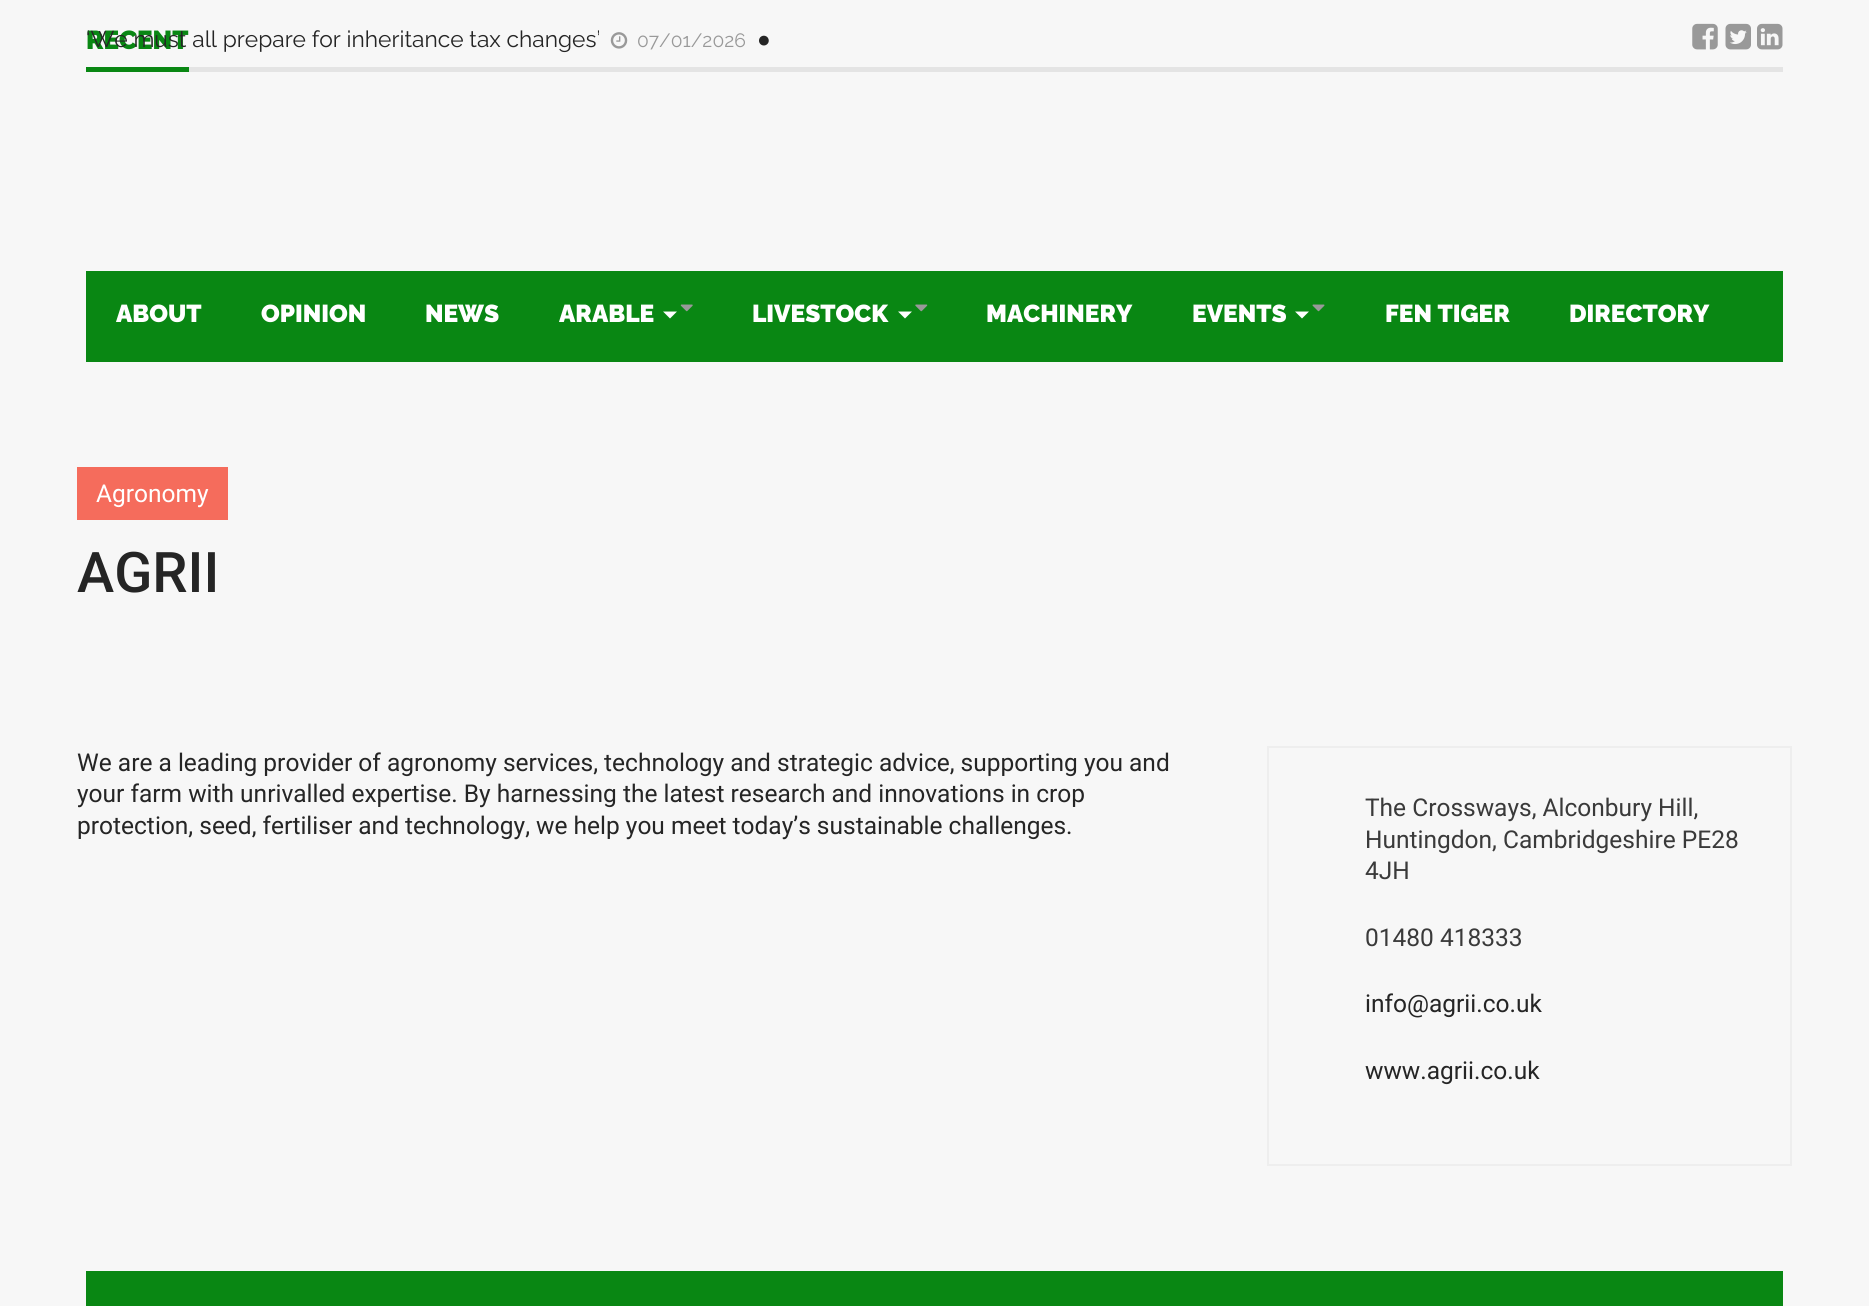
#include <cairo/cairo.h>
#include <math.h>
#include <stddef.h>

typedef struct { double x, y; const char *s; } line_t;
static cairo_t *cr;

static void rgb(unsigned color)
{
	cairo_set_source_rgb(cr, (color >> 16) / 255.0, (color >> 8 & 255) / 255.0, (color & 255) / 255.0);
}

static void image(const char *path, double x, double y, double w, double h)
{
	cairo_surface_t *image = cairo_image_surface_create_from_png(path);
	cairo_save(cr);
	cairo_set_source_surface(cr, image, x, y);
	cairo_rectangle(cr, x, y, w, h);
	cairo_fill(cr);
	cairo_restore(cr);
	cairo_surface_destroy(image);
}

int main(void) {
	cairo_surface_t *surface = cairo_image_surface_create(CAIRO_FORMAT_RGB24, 1869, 1306);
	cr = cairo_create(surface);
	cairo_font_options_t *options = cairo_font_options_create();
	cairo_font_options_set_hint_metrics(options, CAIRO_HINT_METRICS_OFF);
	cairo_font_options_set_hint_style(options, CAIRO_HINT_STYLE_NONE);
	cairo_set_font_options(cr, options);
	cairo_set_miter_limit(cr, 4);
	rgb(0xf7f7f7);
	cairo_paint(cr);
	rgb(0xe4e4e4);
	cairo_rectangle(cr, 189, 67, 1594, 5);
	cairo_fill(cr);
	rgb(0x098713);
	cairo_rectangle(cr, 86, 67, 103, 5);
	cairo_fill(cr);
	image("img/1.png", 1692, 23, 26, 27);
	image("img/2.png", 1725, 23, 26, 27);
	image("img/3.png", 1757, 23, 26, 27);
	image("img/4.png", 610, 32, 18, 17);
	cairo_rectangle(cr, 86, 271, 1697, 91);
	cairo_fill(cr);
	image("img/5.png", 680, 304, 13, 8);
	rgb(0xffffff);
	cairo_new_path(cr);
	cairo_move_to(cr, 663, 311.5);
	cairo_line_to(cr, 677, 311.5);
	cairo_line_to(cr, 670, 318.5);
	cairo_close_path(cr);
	cairo_fill(cr);
	image("img/6.png", 915, 304, 13, 8);
	cairo_new_path(cr);
	cairo_move_to(cr, 898, 311.5);
	cairo_line_to(cr, 912, 311.5);
	cairo_line_to(cr, 905, 318.5);
	cairo_close_path(cr);
	cairo_fill(cr);
	image("img/7.png", 1312, 304, 13, 8);
	cairo_new_path(cr);
	cairo_move_to(cr, 1295, 311.5);
	cairo_line_to(cr, 1309, 311.5);
	cairo_line_to(cr, 1302, 318.5);
	cairo_close_path(cr);
	cairo_fill(cr);
	rgb(0xf56c5c);
	cairo_rectangle(cr, 77, 467, 151, 53);
	cairo_fill(cr);
	cairo_rectangle(cr, 1268, 747, 523, 418);
	rgb(0xeeeeee);
	cairo_stroke(cr);
	rgb(0x098713);
	cairo_rectangle(cr, 86, 1271, 1697, 35);
	cairo_fill(cr);
	cairo_select_font_face(cr, "Raleway Black", CAIRO_FONT_SLANT_NORMAL, CAIRO_FONT_WEIGHT_NORMAL);
	cairo_set_font_size(cr, 26);
	cairo_move_to(cr, 86, 49);
	cairo_show_text(cr, "RECENT");
	cairo_select_font_face(cr, "Raleway", CAIRO_FONT_SLANT_NORMAL, CAIRO_FONT_WEIGHT_NORMAL);
	cairo_set_font_size(cr, 22.75);
	rgb(0x252525);
	cairo_move_to(cr, 86, 47);
	cairo_show_text(cr, "‘We must all prepare for inheritance tax changes’");
	cairo_set_font_size(cr, 19.25);
	rgb(0x999999);
	cairo_move_to(cr, 637, 47);
	cairo_show_text(cr, "07/01/2026");
	cairo_select_font_face(cr, "Liberation Sans", CAIRO_FONT_SLANT_NORMAL, CAIRO_FONT_WEIGHT_NORMAL);
	cairo_set_font_size(cr, 22.75);
	rgb(0x252525);
	cairo_move_to(cr, 757, 47);
	cairo_show_text(cr, "●");
	cairo_select_font_face(cr, "Raleway Black", CAIRO_FONT_SLANT_NORMAL, CAIRO_FONT_WEIGHT_NORMAL);
	cairo_set_font_size(cr, 24.5);
	rgb(0xffffff);
	{
		static const line_t items[] = {
			{116, 322, "ABOUT"},
			{261, 322, "OPINION"},
			{425, 322, "NEWS"},
			{559, 322, "ARABLE"},
			{752, 322, "LIVESTOCK"},
			{986, 322, "MACHINERY"},
			{1192, 322, "EVENTS"},
			{1385, 322, "FEN TIGER"},
			{1569, 322, "DIRECTORY"},
		};
		for (size_t i = 0; i < sizeof items / sizeof *items; i++) {
			cairo_move_to(cr, items[i].x, items[i].y);
			cairo_show_text(cr, items[i].s);
		}
	}
	cairo_select_font_face(cr, "Roboto", CAIRO_FONT_SLANT_NORMAL, CAIRO_FONT_WEIGHT_NORMAL);
	cairo_move_to(cr, 96, 502);
	cairo_show_text(cr, "Agronomy");
	cairo_select_font_face(cr, "Roboto Medium", CAIRO_FONT_SLANT_NORMAL, CAIRO_FONT_WEIGHT_NORMAL);
	cairo_set_font_size(cr, 56);
	rgb(0x252525);
	cairo_move_to(cr, 77, 592);
	cairo_show_text(cr, "AGRII");
	cairo_select_font_face(cr, "Roboto", CAIRO_FONT_SLANT_NORMAL, CAIRO_FONT_WEIGHT_NORMAL);
	cairo_set_font_size(cr, 24.5);
	{
		static const line_t items[] = {
			{77, 771, "We are a leading provider of agronomy services, technology and strategic advice, supporting you and"},
			{77, 802, "your farm with unrivalled expertise. By harnessing the latest research and innovations in crop"},
			{77, 834, "protection, seed, fertiliser and technology, we help you meet today’s sustainable challenges."},
		};
		for (size_t i = 0; i < sizeof items / sizeof *items; i++) {
			cairo_move_to(cr, items[i].x, items[i].y);
			cairo_show_text(cr, items[i].s);
		}
	}
	rgb(0x3a3a3a);
	{
		static const line_t items[] = {
			{1365, 816, "The Crossways, Alconbury Hill,"},
			{1365, 848, "Huntingdon, Cambridgeshire PE28"},
			{1365, 879, "4JH"},
			{1365, 946, "01480 418333"},
		};
		for (size_t i = 0; i < sizeof items / sizeof *items; i++) {
			cairo_move_to(cr, items[i].x, items[i].y);
			cairo_show_text(cr, items[i].s);
		}
	}
	rgb(0x252525);
	cairo_move_to(cr, 1365, 1012);
	cairo_show_text(cr, "info@agrii.co.uk");
	cairo_move_to(cr, 1365, 1079);
	cairo_show_text(cr, "www.agrii.co.uk");
	cairo_surface_write_to_png(surface, "page.png");
	cairo_font_options_destroy(options);
	cairo_destroy(cr);
	cairo_surface_destroy(surface);
	return 0;
}
